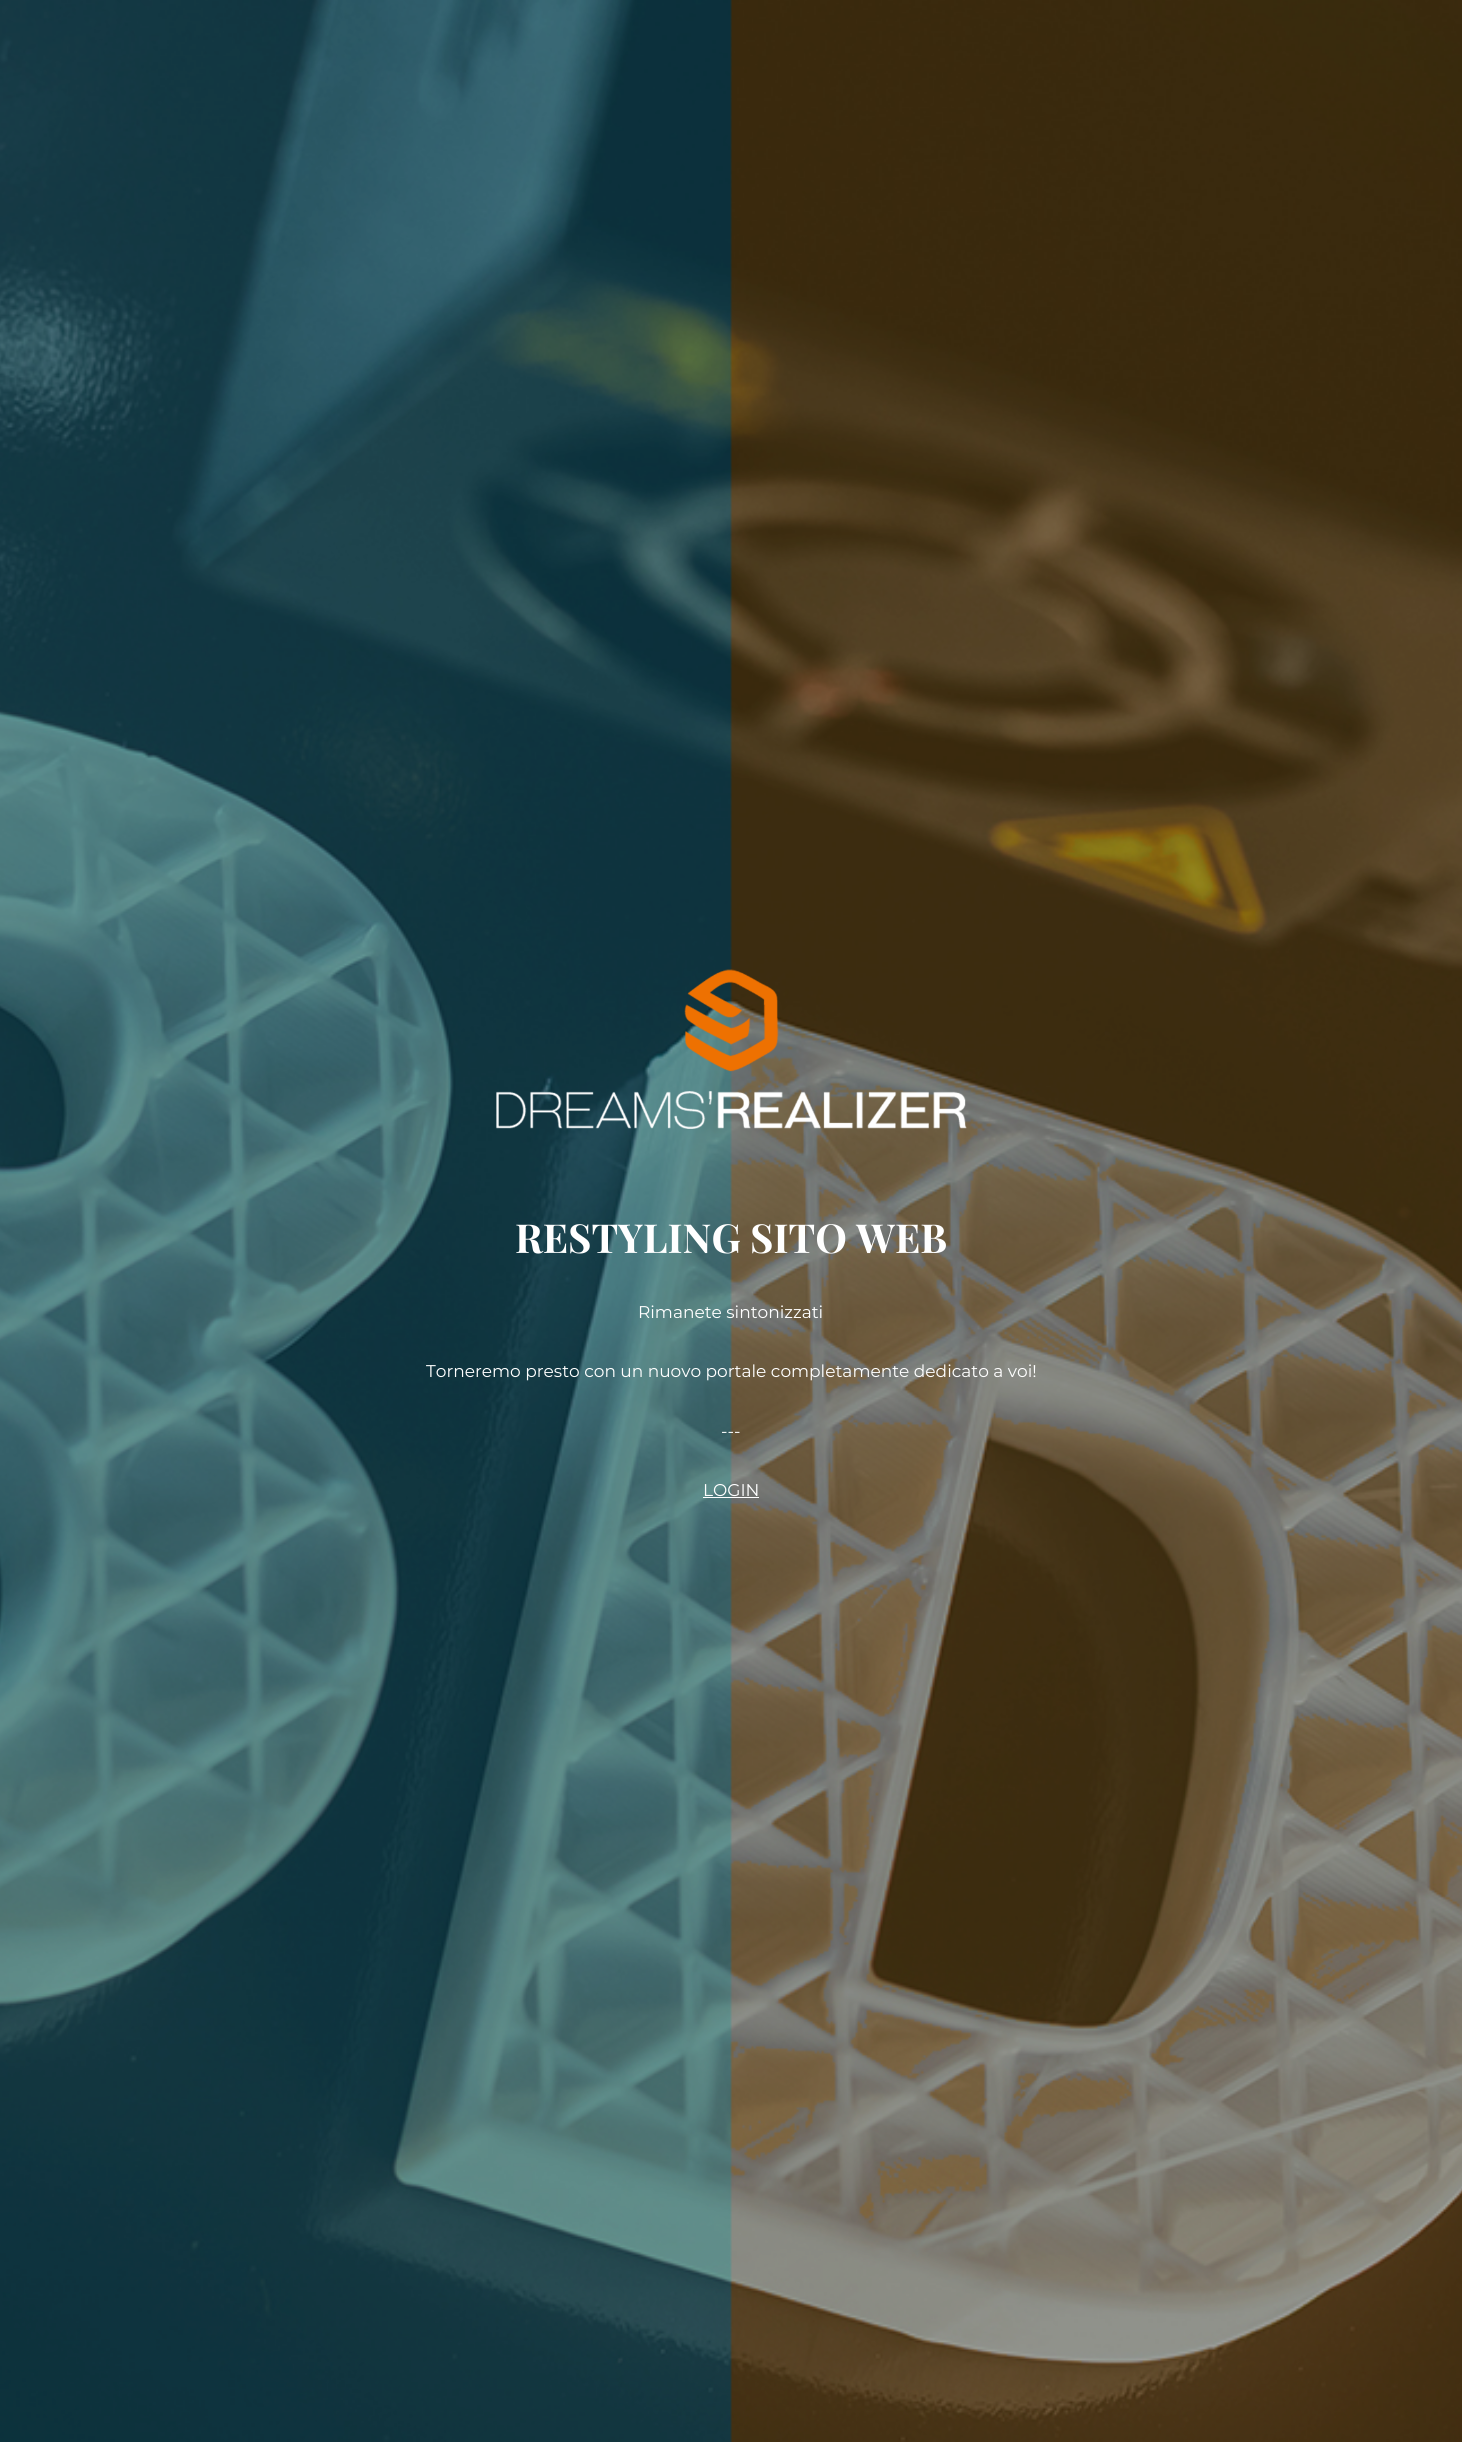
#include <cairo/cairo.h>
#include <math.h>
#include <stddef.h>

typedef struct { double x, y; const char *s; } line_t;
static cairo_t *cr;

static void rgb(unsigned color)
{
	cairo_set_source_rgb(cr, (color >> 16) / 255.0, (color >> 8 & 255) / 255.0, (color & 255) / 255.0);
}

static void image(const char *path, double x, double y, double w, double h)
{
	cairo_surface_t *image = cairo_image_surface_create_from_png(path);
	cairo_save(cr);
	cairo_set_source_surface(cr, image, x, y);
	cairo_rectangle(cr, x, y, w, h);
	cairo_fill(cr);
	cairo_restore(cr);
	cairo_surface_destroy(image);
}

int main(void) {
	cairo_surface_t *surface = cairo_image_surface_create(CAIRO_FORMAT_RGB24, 1462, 2442);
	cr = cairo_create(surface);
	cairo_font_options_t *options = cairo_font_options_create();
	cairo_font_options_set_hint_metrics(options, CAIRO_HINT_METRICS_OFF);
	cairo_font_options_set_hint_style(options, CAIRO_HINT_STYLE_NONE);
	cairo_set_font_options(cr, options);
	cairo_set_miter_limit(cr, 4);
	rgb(0xffffff);
	cairo_paint(cr);
	image("img/1.png", 0, 0, 1462, 2442);
	image("img/2.png", 496, 969, 471, 160);
	rgb(0xffffff);
	cairo_rectangle(cr, 703, 1497, 56, 1);
	cairo_fill(cr);
	cairo_select_font_face(cr, "Playfair Display", CAIRO_FONT_SLANT_NORMAL, CAIRO_FONT_WEIGHT_BOLD);
	cairo_set_font_size(cr, 40);
	cairo_move_to(cr, 515, 1253);
	cairo_show_text(cr, "RESTYLING SITO WEB");
	cairo_select_font_face(cr, "Montserrat", CAIRO_FONT_SLANT_NORMAL, CAIRO_FONT_WEIGHT_NORMAL);
	cairo_set_font_size(cr, 17);
	{
		static const line_t items[] = {
			{638, 1318, "Rimanete sintonizzati"},
			{426, 1377, "Torneremo presto con un nuovo portale completamente dedicato a voi!"},
			{721, 1437, "---"},
			{703, 1496, "LOGIN"},
		};
		for (size_t i = 0; i < sizeof items / sizeof *items; i++) {
			cairo_move_to(cr, items[i].x, items[i].y);
			cairo_show_text(cr, items[i].s);
		}
	}
	cairo_surface_write_to_png(surface, "page.png");
	cairo_font_options_destroy(options);
	cairo_destroy(cr);
	cairo_surface_destroy(surface);
	return 0;
}
